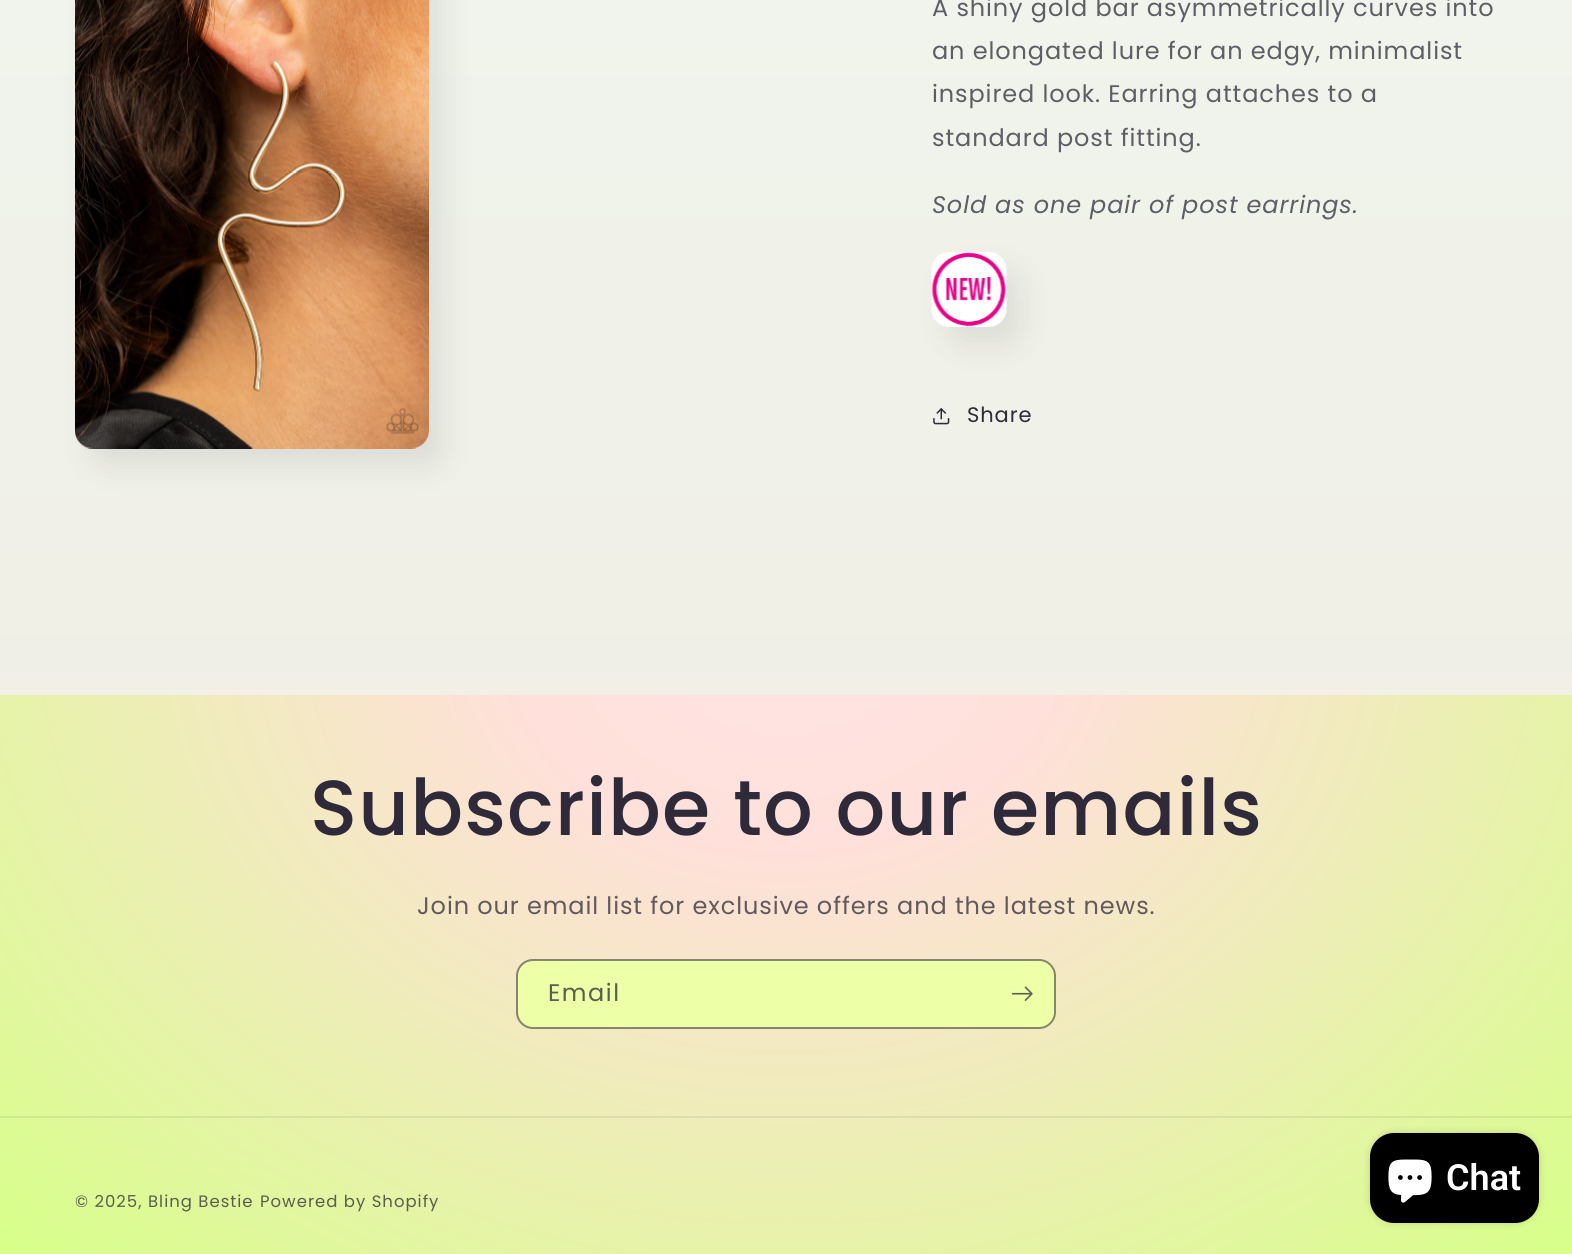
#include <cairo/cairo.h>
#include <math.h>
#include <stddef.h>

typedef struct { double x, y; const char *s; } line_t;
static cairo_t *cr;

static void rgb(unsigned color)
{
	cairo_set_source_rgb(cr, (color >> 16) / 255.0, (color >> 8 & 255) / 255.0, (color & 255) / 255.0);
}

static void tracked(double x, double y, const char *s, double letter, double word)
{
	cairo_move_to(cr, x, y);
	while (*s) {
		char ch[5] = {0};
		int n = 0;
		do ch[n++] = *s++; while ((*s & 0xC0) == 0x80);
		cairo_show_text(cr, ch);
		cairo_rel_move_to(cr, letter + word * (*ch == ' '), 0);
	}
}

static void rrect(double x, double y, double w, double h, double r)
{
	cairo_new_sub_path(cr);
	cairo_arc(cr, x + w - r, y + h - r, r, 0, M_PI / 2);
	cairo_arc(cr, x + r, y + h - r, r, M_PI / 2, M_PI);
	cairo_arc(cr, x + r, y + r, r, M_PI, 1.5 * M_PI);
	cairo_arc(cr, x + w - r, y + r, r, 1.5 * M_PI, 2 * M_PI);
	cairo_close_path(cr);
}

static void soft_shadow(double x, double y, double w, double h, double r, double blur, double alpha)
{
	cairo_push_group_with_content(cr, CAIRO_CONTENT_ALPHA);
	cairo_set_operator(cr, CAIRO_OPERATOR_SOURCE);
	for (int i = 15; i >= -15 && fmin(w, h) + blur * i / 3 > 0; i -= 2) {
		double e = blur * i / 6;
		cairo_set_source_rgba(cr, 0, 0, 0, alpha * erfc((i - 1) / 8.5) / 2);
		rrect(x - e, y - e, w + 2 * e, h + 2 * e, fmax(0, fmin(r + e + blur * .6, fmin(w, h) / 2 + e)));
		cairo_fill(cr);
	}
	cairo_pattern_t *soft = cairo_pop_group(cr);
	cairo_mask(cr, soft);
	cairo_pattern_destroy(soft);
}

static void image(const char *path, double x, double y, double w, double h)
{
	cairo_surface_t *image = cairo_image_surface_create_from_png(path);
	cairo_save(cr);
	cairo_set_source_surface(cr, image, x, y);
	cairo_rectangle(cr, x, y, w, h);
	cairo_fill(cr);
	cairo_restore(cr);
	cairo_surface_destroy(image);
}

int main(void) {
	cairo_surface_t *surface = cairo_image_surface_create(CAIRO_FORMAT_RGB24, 1572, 1254);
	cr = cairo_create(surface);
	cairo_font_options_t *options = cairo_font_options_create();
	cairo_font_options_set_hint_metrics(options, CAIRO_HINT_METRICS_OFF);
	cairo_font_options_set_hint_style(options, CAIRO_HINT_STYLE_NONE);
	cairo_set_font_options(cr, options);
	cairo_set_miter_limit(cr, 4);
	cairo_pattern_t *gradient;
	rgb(0xffffff);
	cairo_paint(cr);
	gradient = cairo_pattern_create_linear(786, 0, 786, 1254);
	cairo_pattern_add_color_stop_rgba(gradient, 0, 0.941, 0.957, 0.925, 1);
	cairo_pattern_add_color_stop_rgba(gradient, 1, 0.945, 0.922, 0.886, 1);
	cairo_set_source(cr, gradient);
	cairo_pattern_destroy(gradient);
	cairo_rectangle(cr, 0, 0, 1572, 695);
	cairo_fill(cr);
	rgb(0x2e2a39);
	soft_shadow(90, -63, 354, 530, 18, 15, 0.1);
	gradient = cairo_pattern_create_linear(786, 0, 786, 1254);
	cairo_pattern_add_color_stop_rgba(gradient, 0, 0.941, 0.957, 0.925, 1);
	cairo_pattern_add_color_stop_rgba(gradient, 1, 0.945, 0.922, 0.886, 1);
	cairo_set_source(cr, gradient);
	cairo_pattern_destroy(gradient);
	cairo_new_path(cr);
	cairo_move_to(cr, 75, 0);
	cairo_line_to(cr, 429, 0);
	cairo_line_to(cr, 429, 431);
	cairo_curve_to(cr, 429, 441, 421, 449, 411, 449);
	cairo_line_to(cr, 93, 449);
	cairo_curve_to(cr, 83, 449, 75, 441, 75, 431);
	cairo_close_path(cr);
	cairo_fill(cr);
	image("img/1.png", 75, 0, 354, 449);
	rgb(0x2e2a39);
	soft_shadow(947, 270, 75, 75, 18, 15, 0.1);
	image("img/2.png", 931, 252, 76, 75);
	image("img/3.png", 933, 408, 17, 17);
	gradient = cairo_pattern_create_radial(0, 0, 0, 0, 0, 1);
	cairo_pattern_set_matrix(gradient, &(cairo_matrix_t){1.0 / 1112, 0, 0, 1.0 / 887, -1.0 * 786 / 1112, -1.0 * 627 / 887});
	cairo_pattern_add_color_stop_rgba(gradient, 0, 1, 0.898, 0.898, 1);
	cairo_pattern_add_color_stop_rgba(gradient, 0.25, 1, 0.878, 0.855, 1);
	cairo_pattern_add_color_stop_rgba(gradient, 1, 0.843, 1, 0.537, 1);
	cairo_set_source(cr, gradient);
	cairo_pattern_destroy(gradient);
	cairo_rectangle(cr, 0, 695, 1572, 346);
	cairo_fill(cr);
	rgb(0xedffa7);
	rrect(518, 960, 537, 68, 15);
	cairo_fill(cr);
	rrect(517, 960, 538, 68, 16);
	cairo_set_source_rgba(cr, 0.18, 0.165, 0.224, 0.55);
	cairo_stroke(cr);
	image("img/4.png", 1011, 986, 22, 15);
	gradient = cairo_pattern_create_radial(0, 0, 0, 0, 0, 1);
	cairo_pattern_set_matrix(gradient, &(cairo_matrix_t){1.0 / 1112, 0, 0, 1.0 / 887, -1.0 * 786 / 1112, -1.0 * 627 / 887});
	cairo_pattern_add_color_stop_rgba(gradient, 0, 1, 0.898, 0.898, 1);
	cairo_pattern_add_color_stop_rgba(gradient, 0.25, 1, 0.878, 0.855, 1);
	cairo_pattern_add_color_stop_rgba(gradient, 1, 0.843, 1, 0.537, 1);
	cairo_set_source(cr, gradient);
	cairo_pattern_destroy(gradient);
	cairo_rectangle(cr, 0, 1041, 1572, 213);
	cairo_fill(cr);
	rgb(0x000000);
	soft_shadow(1370, 1133, 169, 90, 24, 4, 0.15);
	rgb(0x000000);
	rrect(1370, 1133, 169, 90, 24);
	cairo_fill(cr);
	image("img/5.png", 1388, 1159, 44, 44);
	gradient = cairo_pattern_create_radial(0, 0, 0, 0, 0, 1);
	cairo_pattern_set_matrix(gradient, &(cairo_matrix_t){1.0 / 1112, 0, 0, 1.0 / 887, -1.0 * 786 / 1112, -1.0 * 627 / 887});
	cairo_pattern_add_color_stop_rgba(gradient, 0, 0.933, 0.839, 0.843, 1);
	cairo_pattern_add_color_stop_rgba(gradient, 0.25, 0.933, 0.82, 0.804, 1);
	cairo_pattern_add_color_stop_rgba(gradient, 1, 0.788, 0.933, 0.514, 1);
	cairo_set_source(cr, gradient);
	cairo_pattern_destroy(gradient);
	cairo_rectangle(cr, 0, 1116, 1572, 2);
	cairo_fill(cr);
	cairo_select_font_face(cr, "Poppins", CAIRO_FONT_SLANT_NORMAL, CAIRO_FONT_WEIGHT_NORMAL);
	cairo_set_font_size(cr, 24);
	rgb(0x5f5d66);
	{
		static const line_t items[] = {
			{932, 16, "A shiny gold bar asymmetrically curves into"},
			{932, 59, "an elongated lure for an edgy, minimalist"},
			{932, 102, "inspired look. Earring attaches to a"},
			{932, 146, "standard post fitting."},
		};
		for (size_t i = 0; i < sizeof items / sizeof *items; i++) {
			tracked(items[i].x, items[i].y, items[i].s, 0.9, 0);
		}
	}
	cairo_select_font_face(cr, "Poppins", CAIRO_FONT_SLANT_ITALIC, CAIRO_FONT_WEIGHT_NORMAL);
	tracked(932, 213, "Sold as one pair of post earrings.", 0.9, 0);
	cairo_select_font_face(cr, "Poppins", CAIRO_FONT_SLANT_NORMAL, CAIRO_FONT_WEIGHT_NORMAL);
	cairo_set_font_size(cr, 21);
	rgb(0x2e2a39);
	tracked(967, 422, "Share", 0.9, 0);
	cairo_select_font_face(cr, "Poppins Medium", CAIRO_FONT_SLANT_NORMAL, CAIRO_FONT_WEIGHT_NORMAL);
	cairo_set_font_size(cr, 78);
	tracked(310, 835, "Subscribe to our emails", 1.2, 0);
	cairo_select_font_face(cr, "Poppins", CAIRO_FONT_SLANT_NORMAL, CAIRO_FONT_WEIGHT_NORMAL);
	cairo_set_font_size(cr, 24);
	rgb(0x61595e);
	tracked(417, 914, "Join our email list for exclusive offers and the latest news.", 0.9, 0);
	rgb(0x5a5e50);
	tracked(548, 1001, "Email", 1.5, 0);
	cairo_select_font_face(cr, "Roboto SemiBold", CAIRO_FONT_SLANT_NORMAL, CAIRO_FONT_WEIGHT_NORMAL);
	cairo_set_font_size(cr, 36);
	rgb(0xffffff);
	cairo_move_to(cr, 1446, 1190);
	cairo_show_text(cr, "Chat");
	cairo_select_font_face(cr, "Poppins", CAIRO_FONT_SLANT_NORMAL, CAIRO_FONT_WEIGHT_NORMAL);
	cairo_set_font_size(cr, 16.5);
	rgb(0x5a5e50);
	{
		static const line_t items[] = {
			{75, 1207, "© 2025,"},
			{148, 1207, "Bling Bestie"},
			{260, 1207, "Powered by Shopify"},
		};
		for (size_t i = 0; i < sizeof items / sizeof *items; i++) {
			tracked(items[i].x, items[i].y, items[i].s, 1, 0);
		}
	}
	cairo_surface_write_to_png(surface, "page.png");
	cairo_font_options_destroy(options);
	cairo_destroy(cr);
	cairo_surface_destroy(surface);
	return 0;
}
